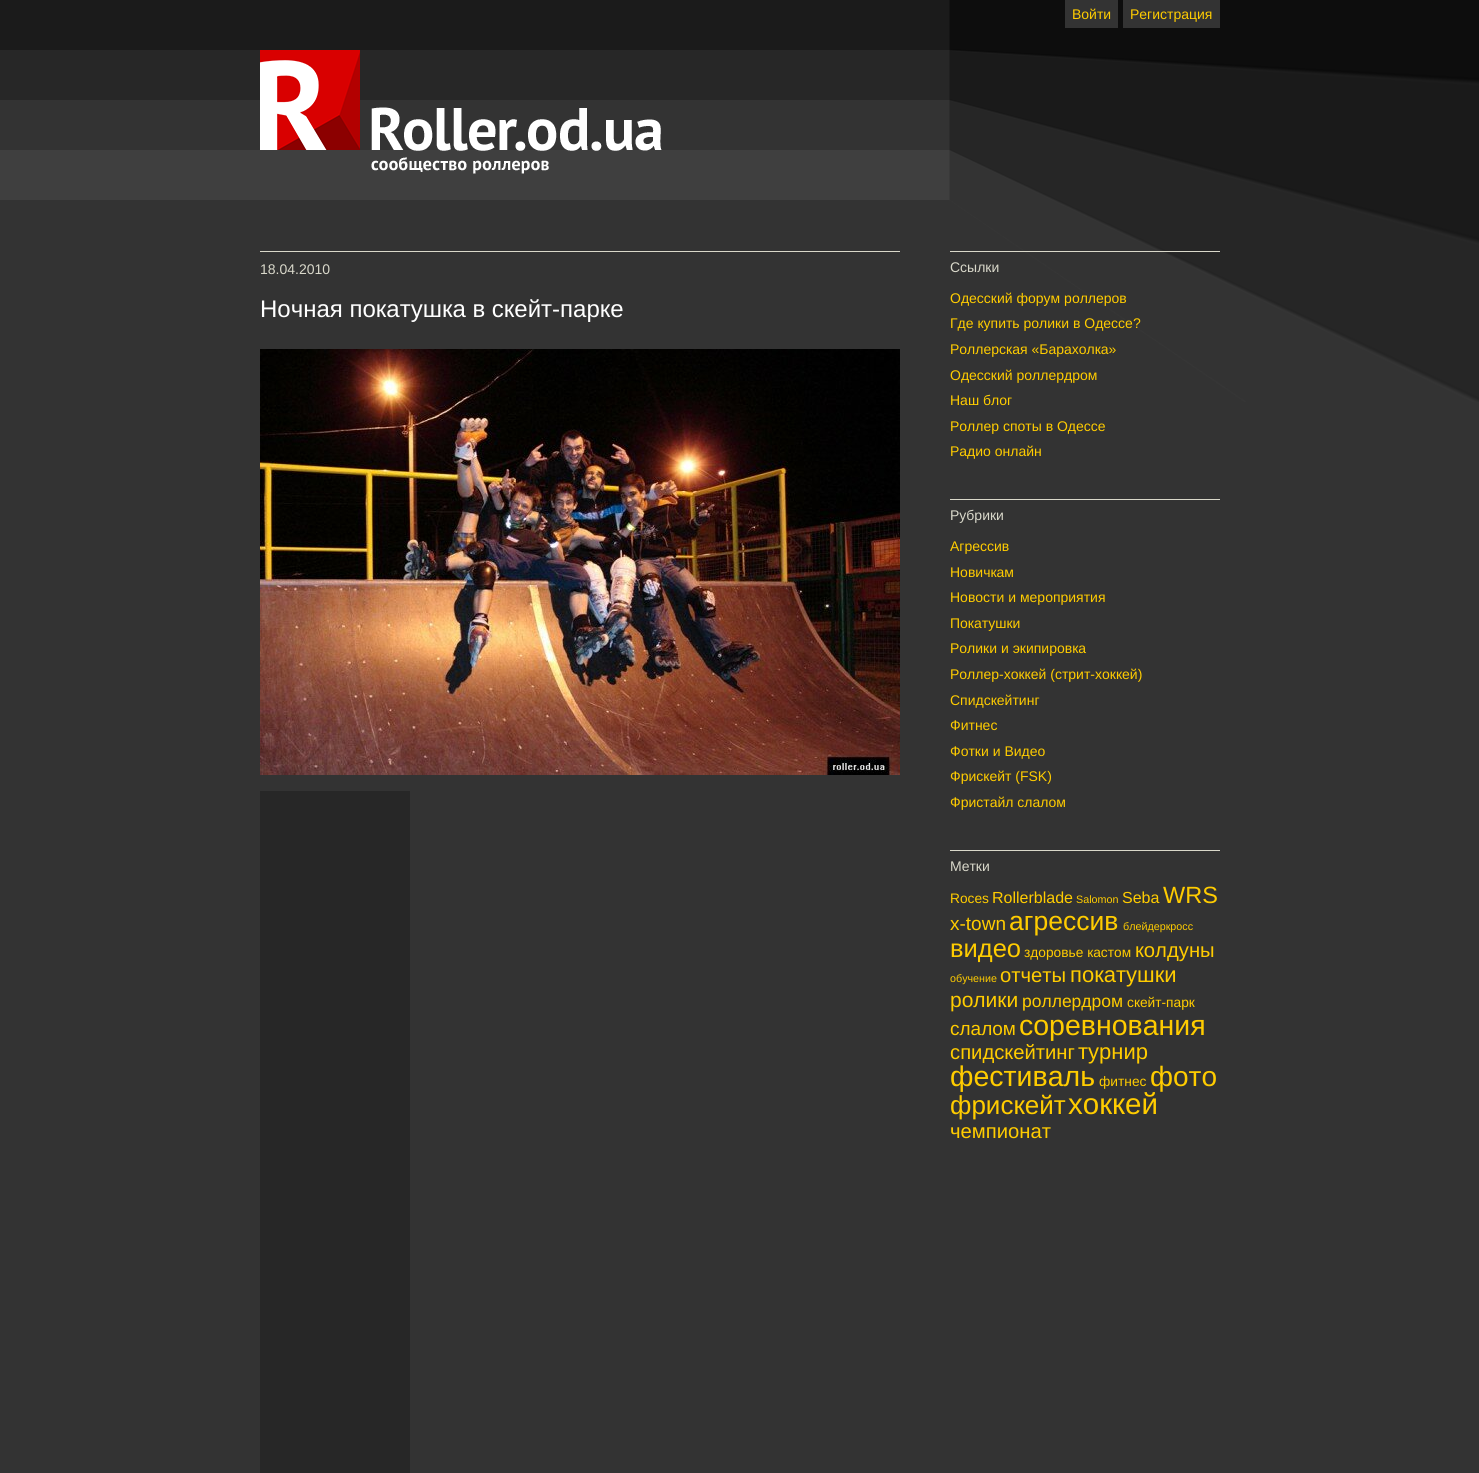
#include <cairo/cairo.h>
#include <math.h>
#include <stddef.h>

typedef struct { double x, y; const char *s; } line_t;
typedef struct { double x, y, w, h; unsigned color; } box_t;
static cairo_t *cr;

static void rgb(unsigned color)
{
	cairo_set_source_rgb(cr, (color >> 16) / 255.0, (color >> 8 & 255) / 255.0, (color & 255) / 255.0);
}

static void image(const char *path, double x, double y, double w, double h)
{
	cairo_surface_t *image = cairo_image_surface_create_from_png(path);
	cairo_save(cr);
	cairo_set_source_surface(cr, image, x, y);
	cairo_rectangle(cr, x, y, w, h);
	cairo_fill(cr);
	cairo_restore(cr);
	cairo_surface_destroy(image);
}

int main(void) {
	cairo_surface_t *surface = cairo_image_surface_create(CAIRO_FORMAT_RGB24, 1479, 1473);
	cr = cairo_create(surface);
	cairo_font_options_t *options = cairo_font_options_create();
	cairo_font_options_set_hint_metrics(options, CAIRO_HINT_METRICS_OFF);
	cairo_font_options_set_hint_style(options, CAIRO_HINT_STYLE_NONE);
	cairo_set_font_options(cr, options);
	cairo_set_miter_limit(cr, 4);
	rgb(0x333333);
	cairo_paint(cr);
	image("img/1.png", 0, 0, 1479, 402);
	rgb(0x333333);
	cairo_rectangle(cr, 1065, 0, 53, 28);
	cairo_fill(cr);
	cairo_rectangle(cr, 1123, 0, 97, 28);
	cairo_fill(cr);
	image("img/2.png", 260, 50, 402, 124);
	rgb(0xd9d8ca);
	cairo_rectangle(cr, 260, 251, 640, 1);
	cairo_fill(cr);
	image("img/3.png", 260, 349, 640, 426);
	{
		static const box_t items[] = {
			{260, 791, 150, 682, 0x272727},
			{950, 251, 270, 1, 0xd9d8ca},
			{950, 499, 270, 1, 0xd9d8ca},
			{950, 850, 270, 1, 0xd9d8ca},
		};
		for (size_t i = 0; i < sizeof items / sizeof *items; i++) {
			rgb(items[i].color);
			cairo_rectangle(cr, items[i].x, items[i].y, items[i].w, items[i].h);
			cairo_fill(cr);
		}
	}
	cairo_select_font_face(cr, "Liberation Sans", CAIRO_FONT_SLANT_NORMAL, CAIRO_FONT_WEIGHT_NORMAL);
	cairo_set_font_size(cr, 14);
	rgb(0xffcc00);
	cairo_move_to(cr, 1072, 19);
	cairo_show_text(cr, "Войти");
	cairo_move_to(cr, 1130, 19);
	cairo_show_text(cr, "Регистрация");
	rgb(0xd9d8ca);
	cairo_move_to(cr, 260, 274);
	cairo_show_text(cr, "18.04.2010");
	cairo_set_font_size(cr, 24);
	rgb(0xffffff);
	cairo_move_to(cr, 260, 317);
	cairo_show_text(cr, "Ночная покатушка в скейт-парке");
	cairo_set_font_size(cr, 14);
	rgb(0xd9d8ca);
	cairo_move_to(cr, 950, 272);
	cairo_show_text(cr, "Ссылки");
	rgb(0xffcc00);
	{
		static const line_t items[] = {
			{950, 303, "Одесский форум роллеров"},
			{950, 328, "Где купить ролики в Одессе?"},
			{950, 354, "Роллерская «Барахолка»"},
			{950, 380, "Одесский роллердром"},
			{950, 405, "Наш блог"},
			{950, 431, "Роллер споты в Одессе"},
			{950, 456, "Радио онлайн"},
		};
		for (size_t i = 0; i < sizeof items / sizeof *items; i++) {
			cairo_move_to(cr, items[i].x, items[i].y);
			cairo_show_text(cr, items[i].s);
		}
	}
	rgb(0xd9d8ca);
	cairo_move_to(cr, 950, 520);
	cairo_show_text(cr, "Рубрики");
	rgb(0xffcc00);
	{
		static const line_t items[] = {
			{950, 551, "Агрессив"},
			{950, 577, "Новичкам"},
			{950, 602, "Новости и мероприятия"},
			{950, 628, "Покатушки"},
			{950, 653, "Ролики и экипировка"},
			{950, 679, "Роллер-хоккей (cтрит-хоккей)"},
			{950, 705, "Спидскейтинг"},
			{950, 730, "Фитнес"},
			{950, 756, "Фотки и Видео"},
			{950, 781, "Фрискейт (FSK)"},
			{950, 807, "Фристайл слалом"},
		};
		for (size_t i = 0; i < sizeof items / sizeof *items; i++) {
			cairo_move_to(cr, items[i].x, items[i].y);
			cairo_show_text(cr, items[i].s);
		}
	}
	rgb(0xd9d8ca);
	cairo_move_to(cr, 950, 871);
	cairo_show_text(cr, "Метки");
	cairo_set_font_size(cr, 13.75);
	rgb(0xffcc00);
	cairo_move_to(cr, 950, 903);
	cairo_show_text(cr, "Roces");
	cairo_set_font_size(cr, 16);
	cairo_move_to(cr, 992, 903);
	cairo_show_text(cr, "Rollerblade");
	cairo_set_font_size(cr, 10.75);
	cairo_move_to(cr, 1076, 903);
	cairo_show_text(cr, "Salomon");
	cairo_set_font_size(cr, 16);
	cairo_move_to(cr, 1122, 903);
	cairo_show_text(cr, "Seba");
	cairo_set_font_size(cr, 23.5);
	cairo_move_to(cr, 1163, 903);
	cairo_show_text(cr, "WRS");
	cairo_set_font_size(cr, 19);
	cairo_move_to(cr, 950, 930);
	cairo_show_text(cr, "x-town");
	cairo_set_font_size(cr, 26.5);
	cairo_move_to(cr, 1009, 930);
	cairo_show_text(cr, "агрессив");
	cairo_set_font_size(cr, 10.75);
	cairo_move_to(cr, 1123, 930);
	cairo_show_text(cr, "блейдеркросс");
	cairo_set_font_size(cr, 25.5);
	cairo_move_to(cr, 950, 957);
	cairo_show_text(cr, "видео");
	cairo_set_font_size(cr, 13.75);
	cairo_move_to(cr, 1024, 957);
	cairo_show_text(cr, "здоровье кастом");
	cairo_set_font_size(cr, 20.25);
	cairo_move_to(cr, 1135, 957);
	cairo_show_text(cr, "колдуны");
	cairo_set_font_size(cr, 10.75);
	cairo_move_to(cr, 950, 982);
	cairo_show_text(cr, "обучение");
	cairo_set_font_size(cr, 20.25);
	cairo_move_to(cr, 1000, 982);
	cairo_show_text(cr, "отчеты");
	cairo_set_font_size(cr, 22);
	cairo_move_to(cr, 1070, 982);
	cairo_show_text(cr, "покатушки");
	cairo_set_font_size(cr, 21);
	cairo_move_to(cr, 950, 1007);
	cairo_show_text(cr, "ролики");
	cairo_set_font_size(cr, 17.5);
	cairo_move_to(cr, 1022, 1007);
	cairo_show_text(cr, "роллердром");
	cairo_set_font_size(cr, 13.75);
	cairo_move_to(cr, 1127, 1007);
	cairo_show_text(cr, "скейт-парк");
	cairo_set_font_size(cr, 19);
	cairo_move_to(cr, 950, 1035);
	cairo_show_text(cr, "слалом");
	cairo_set_font_size(cr, 28.5);
	cairo_move_to(cr, 1019, 1035);
	cairo_show_text(cr, "соревнования");
	cairo_set_font_size(cr, 20.25);
	cairo_move_to(cr, 950, 1059);
	cairo_show_text(cr, "спидскейтинг");
	cairo_set_font_size(cr, 22);
	cairo_move_to(cr, 1078, 1059);
	cairo_show_text(cr, "турнир");
	cairo_set_font_size(cr, 28.5);
	cairo_move_to(cr, 950, 1086);
	cairo_show_text(cr, "фестиваль");
	cairo_set_font_size(cr, 13.75);
	cairo_move_to(cr, 1099, 1086);
	cairo_show_text(cr, "фитнес");
	cairo_set_font_size(cr, 28);
	cairo_move_to(cr, 1150, 1086);
	cairo_show_text(cr, "фото");
	cairo_set_font_size(cr, 26);
	cairo_move_to(cr, 950, 1114);
	cairo_show_text(cr, "фрискейт");
	cairo_set_font_size(cr, 29.5);
	cairo_move_to(cr, 1068, 1114);
	cairo_show_text(cr, "хоккей");
	cairo_set_font_size(cr, 20.25);
	cairo_move_to(cr, 950, 1138);
	cairo_show_text(cr, "чемпионат");
	cairo_surface_write_to_png(surface, "page.png");
	cairo_font_options_destroy(options);
	cairo_destroy(cr);
	cairo_surface_destroy(surface);
	return 0;
}
